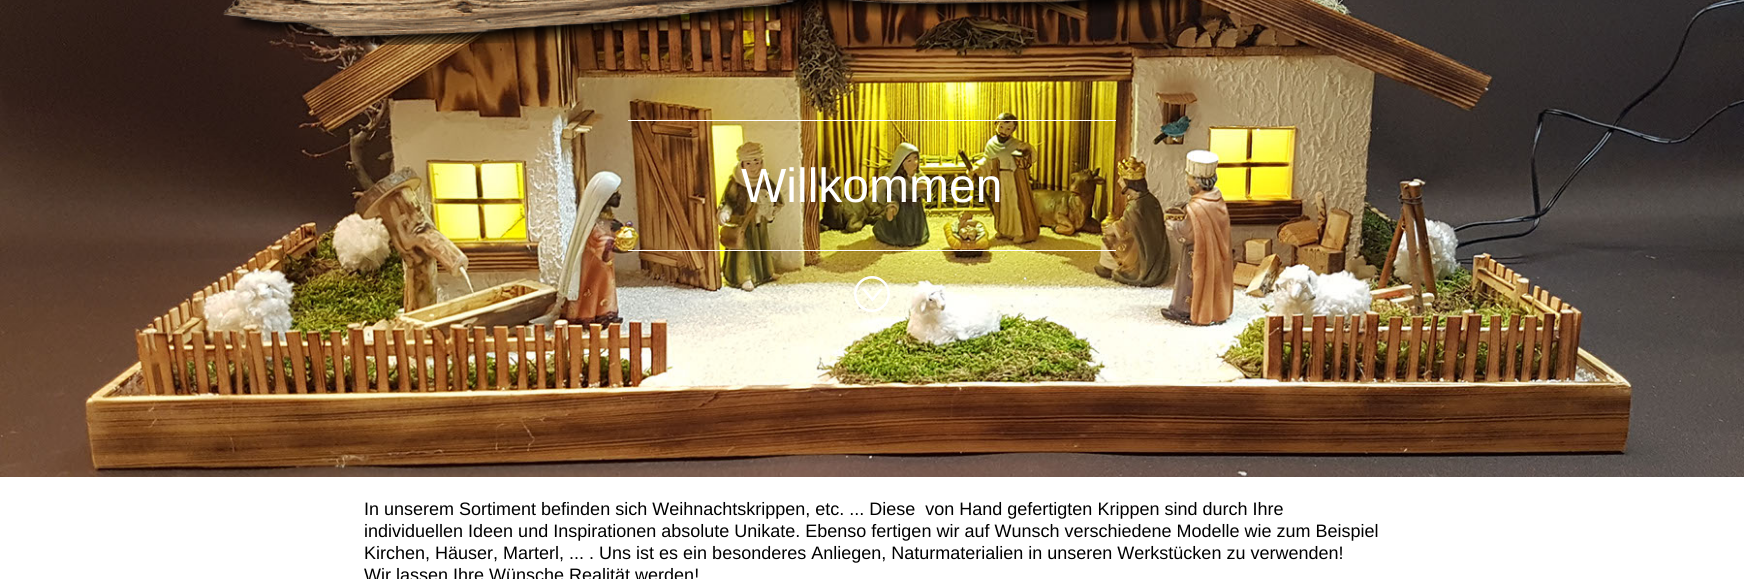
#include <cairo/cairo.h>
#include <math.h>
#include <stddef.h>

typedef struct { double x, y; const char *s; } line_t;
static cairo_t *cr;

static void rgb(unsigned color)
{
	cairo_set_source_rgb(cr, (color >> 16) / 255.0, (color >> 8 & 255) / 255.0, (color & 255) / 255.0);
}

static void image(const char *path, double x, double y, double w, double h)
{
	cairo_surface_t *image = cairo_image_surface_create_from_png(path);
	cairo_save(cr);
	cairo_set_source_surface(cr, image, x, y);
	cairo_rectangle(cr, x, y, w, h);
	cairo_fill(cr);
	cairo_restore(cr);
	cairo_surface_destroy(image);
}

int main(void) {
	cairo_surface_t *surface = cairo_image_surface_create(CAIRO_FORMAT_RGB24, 1744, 579);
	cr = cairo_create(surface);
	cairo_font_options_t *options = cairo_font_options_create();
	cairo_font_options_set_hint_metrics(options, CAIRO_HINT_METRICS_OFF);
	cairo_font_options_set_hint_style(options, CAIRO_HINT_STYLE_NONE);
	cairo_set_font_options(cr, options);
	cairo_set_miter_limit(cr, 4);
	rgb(0xffffff);
	cairo_paint(cr);
	image("img/2.png", 0, 0, 1744, 477);
	image("img/1.png", 223, 0, 967, 46);
	rgb(0xffffff);
	cairo_rectangle(cr, 628, 120, 488, 1);
	cairo_fill(cr);
	cairo_rectangle(cr, 628, 250, 488, 1);
	cairo_fill(cr);
	image("img/3.png", 854, 276, 36, 36);
	cairo_select_font_face(cr, "Liberation Sans", CAIRO_FONT_SLANT_NORMAL, CAIRO_FONT_WEIGHT_NORMAL);
	cairo_set_font_size(cr, 48);
	cairo_move_to(cr, 741, 202);
	cairo_show_text(cr, "Willkommen");
	cairo_set_font_size(cr, 18);
	rgb(0x000000);
	{
		static const line_t items[] = {
			{364, 515, "In unserem Sortiment befinden sich Weihnachtskrippen, etc. ... Diese  von Hand gefertigten Krippen sind durch Ihre"},
			{364, 537, "individuellen Ideen und Inspirationen absolute Unikate. Ebenso fertigen wir auf Wunsch verschiedene Modelle wie zum Beispiel"},
			{364, 559, "Kirchen, Häuser, Marterl, ... . Uns ist es ein besonderes Anliegen, Naturmaterialien in unseren Werkstücken zu verwenden!"},
			{364, 581, "Wir lassen Ihre Wünsche Realität werden!"},
		};
		for (size_t i = 0; i < sizeof items / sizeof *items; i++) {
			cairo_move_to(cr, items[i].x, items[i].y);
			cairo_show_text(cr, items[i].s);
		}
	}
	cairo_surface_write_to_png(surface, "page.png");
	cairo_font_options_destroy(options);
	cairo_destroy(cr);
	cairo_surface_destroy(surface);
	return 0;
}
